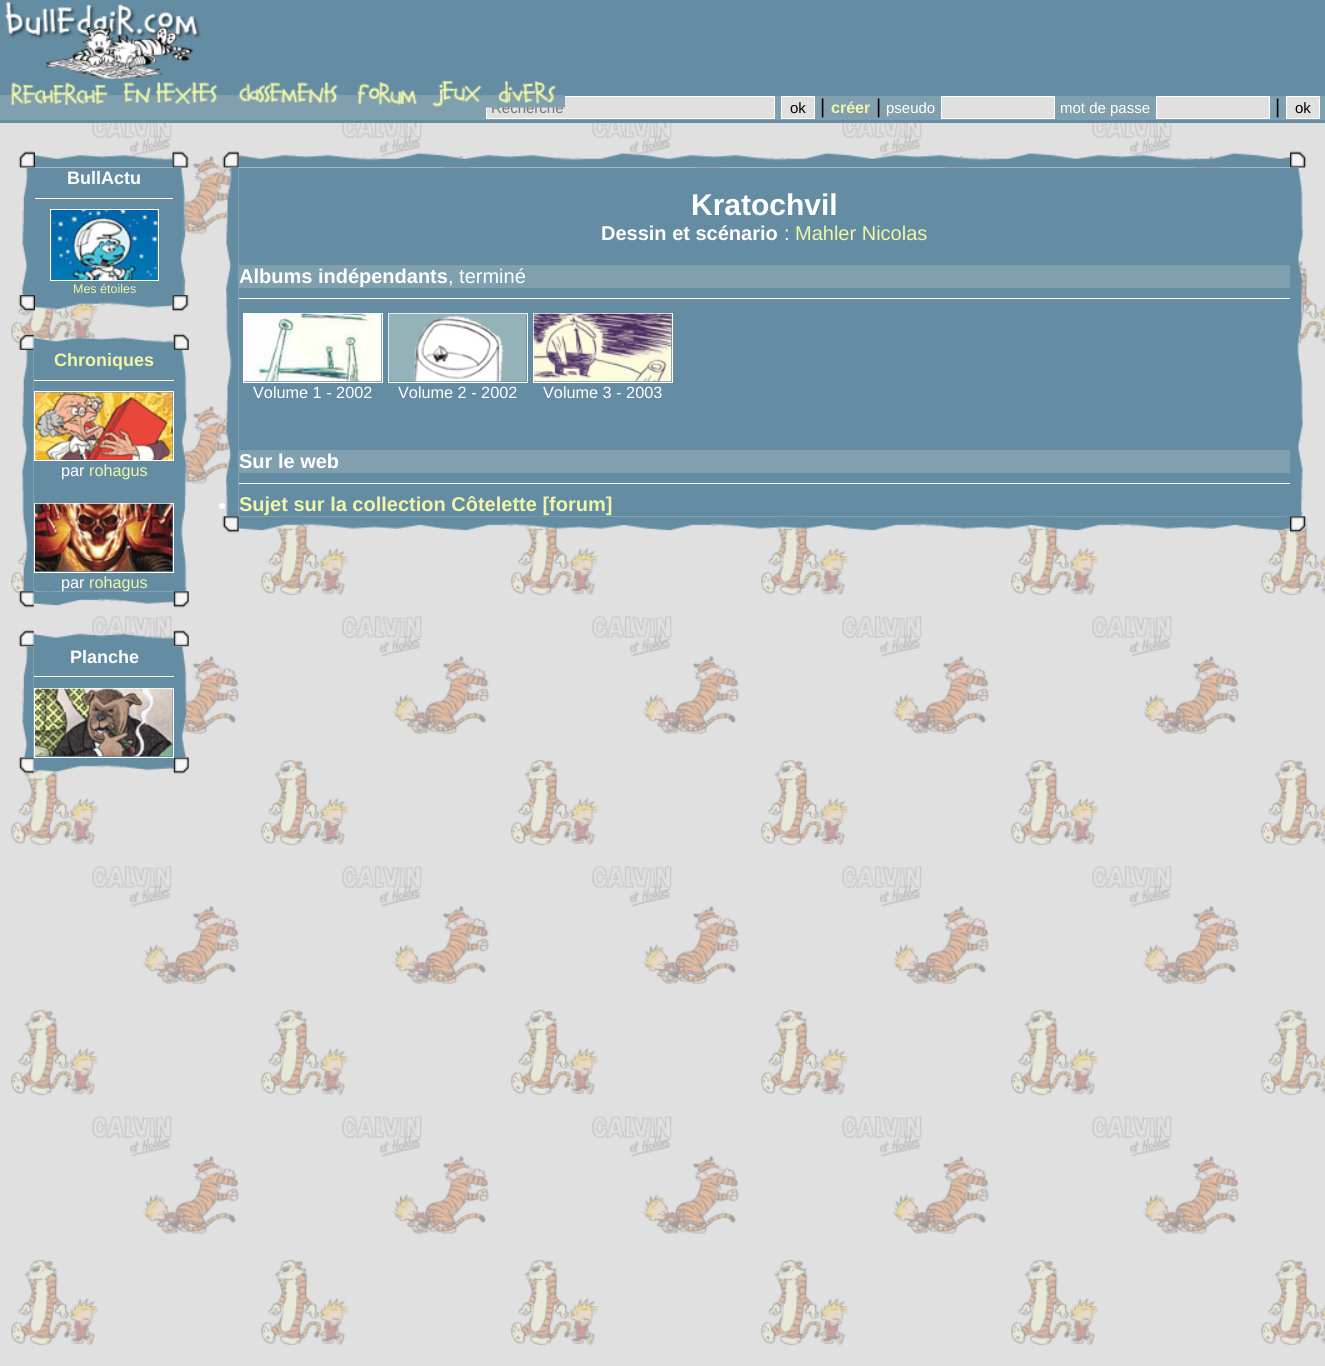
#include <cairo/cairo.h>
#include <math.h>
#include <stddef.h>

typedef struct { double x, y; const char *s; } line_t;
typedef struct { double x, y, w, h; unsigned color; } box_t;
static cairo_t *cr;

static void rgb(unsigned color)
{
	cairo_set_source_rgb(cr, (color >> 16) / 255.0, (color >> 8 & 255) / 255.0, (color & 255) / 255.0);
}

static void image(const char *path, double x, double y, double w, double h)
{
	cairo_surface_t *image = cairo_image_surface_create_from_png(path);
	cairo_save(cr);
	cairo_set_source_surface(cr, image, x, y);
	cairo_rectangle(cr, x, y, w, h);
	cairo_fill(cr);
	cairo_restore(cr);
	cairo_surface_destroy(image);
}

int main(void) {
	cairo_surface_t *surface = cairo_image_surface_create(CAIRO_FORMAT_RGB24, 1325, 1366);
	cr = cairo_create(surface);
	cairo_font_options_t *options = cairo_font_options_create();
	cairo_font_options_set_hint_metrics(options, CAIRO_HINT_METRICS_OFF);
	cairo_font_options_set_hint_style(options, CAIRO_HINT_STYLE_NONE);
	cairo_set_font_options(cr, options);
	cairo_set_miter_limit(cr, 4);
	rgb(0xe0e0e0);
	cairo_paint(cr);
	image("img/1.png", 11, 123, 1314, 1223);
	rgb(0x648da3);
	cairo_rectangle(cr, 0, 0, 1325, 93);
	cairo_fill(cr);
	image("img/2.png", 5, 1, 196, 78);
	rgb(0x80a0b0);
	cairo_rectangle(cr, 0, 96, 1325, 24);
	cairo_fill(cr);
	image("img/3.png", 0, 78, 115, 28);
	rgb(0x648da3);
	cairo_rectangle(cr, 227, 93, 1098, 3);
	cairo_fill(cr);
	image("img/4.png", 115, 78, 113, 27);
	image("img/5.png", 227, 82, 121, 21);
	image("img/6.png", 347, 82, 78, 24);
	rgb(0xe0e0e0);
	cairo_rectangle(cr, 486.5, 96.5, 288, 22);
	cairo_fill_preserve(cr);
	rgb(0xffffff);
	cairo_set_line_width(cr, 1);
	cairo_stroke(cr);
	image("img/7.png", 425, 80, 65, 28);
	rgb(0x648da3);
	cairo_rectangle(cr, 0, 120, 1325, 3);
	cairo_fill(cr);
	rgb(0xe0e0e0);
	cairo_rectangle(cr, 781.5, 96.5, 33, 22);
	cairo_fill_preserve(cr);
	rgb(0xffffff);
	cairo_stroke(cr);
	rgb(0xe0e0e0);
	cairo_rectangle(cr, 941.5, 96.5, 113, 22);
	cairo_fill_preserve(cr);
	rgb(0xffffff);
	cairo_stroke(cr);
	rgb(0xe0e0e0);
	cairo_rectangle(cr, 1156.5, 96.5, 113, 22);
	cairo_fill_preserve(cr);
	rgb(0xffffff);
	cairo_stroke(cr);
	rgb(0xe0e0e0);
	cairo_rectangle(cr, 1286.5, 96.5, 33, 22);
	cairo_fill_preserve(cr);
	rgb(0xffffff);
	cairo_stroke(cr);
	image("img/9.png", 18, 151, 17, 17);
	image("img/10.png", 35, 154, 138, 14);
	image("img/11.png", 172, 151, 17, 17);
	image("img/12.png", 22, 167, 13, 128);
	rgb(0x648da3);
	cairo_rectangle(cr, 35, 168, 138, 127);
	cairo_fill(cr);
	image("img/14.png", 172, 167, 14, 128);
	rgb(0xffffff);
	cairo_rectangle(cr, 35, 198, 138, 1);
	cairo_fill(cr);
	cairo_rectangle(cr, 50.5, 209.5, 108, 71);
	cairo_stroke(cr);
	image("img/13.png", 51, 210, 107, 70);
	image("img/15.png", 18, 295, 17, 17);
	image("img/16.png", 35, 295, 138, 15);
	image("img/17.png", 172, 295, 17, 17);
	image("img/18.png", 18, 333, 16, 17);
	image("img/19.png", 33, 337, 141, 13);
	image("img/20.png", 173, 333, 16, 17);
	image("img/21.png", 22, 350, 12, 242);
	rgb(0x648da3);
	cairo_rectangle(cr, 34, 350, 140, 241);
	cairo_fill(cr);
	image("img/24.png", 173, 350, 14, 242);
	rgb(0xffffff);
	cairo_rectangle(cr, 34, 380, 140, 1);
	cairo_fill(cr);
	cairo_rectangle(cr, 34.5, 391.5, 139, 69);
	cairo_stroke(cr);
	image("img/22.png", 35, 392, 138, 68);
	cairo_rectangle(cr, 34.5, 503.5, 139, 69);
	cairo_stroke(cr);
	image("img/23.png", 35, 503, 138, 69);
	image("img/25.png", 18, 591, 16, 17);
	image("img/26.png", 33, 591, 141, 15);
	image("img/27.png", 173, 591, 16, 17);
	image("img/28.png", 18, 630, 16, 17);
	image("img/29.png", 33, 633, 141, 14);
	image("img/30.png", 173, 630, 16, 17);
	image("img/31.png", 22, 646, 12, 112);
	rgb(0x648da3);
	cairo_rectangle(cr, 34, 646, 140, 111);
	cairo_fill(cr);
	rgb(0xffffff);
	cairo_rectangle(cr, 34, 676, 140, 1);
	cairo_fill(cr);
	image("img/34.png", 18, 757, 16, 17);
	image("img/35.png", 33, 757, 141, 15);
	image("img/33.png", 174, 646, 13, 112);
	image("img/36.png", 173, 757, 16, 17);
	cairo_rectangle(cr, 34.5, 688.5, 139, 69);
	cairo_stroke(cr);
	image("img/32.png", 35, 688, 138, 69);
	image("img/37.png", 222, 151, 17, 17);
	image("img/38.png", 238, 152, 1052, 16);
	image("img/39.png", 1290, 151, 17, 17);
	image("img/40.png", 226, 167, 13, 350);
	{
		static const box_t items[] = {
			{239, 168, 1051, 348, 0x648da3},
			{239, 265, 1051, 23, 0x80a0b0},
			{239, 298, 1051, 1, 0xffffff},
		};
		for (size_t i = 0; i < sizeof items / sizeof *items; i++) {
			rgb(items[i].color);
			cairo_rectangle(cr, items[i].x, items[i].y, items[i].w, items[i].h);
			cairo_fill(cr);
		}
	}
	cairo_rectangle(cr, 243.5, 313.5, 139, 69);
	cairo_stroke(cr);
	image("img/41.png", 244, 313, 138, 69);
	cairo_rectangle(cr, 388.5, 313.5, 139, 69);
	cairo_stroke(cr);
	image("img/42.png", 388, 313, 139, 69);
	cairo_rectangle(cr, 533.5, 313.5, 139, 69);
	cairo_stroke(cr);
	image("img/43.png", 533, 313, 139, 69);
	rgb(0x80a0b0);
	cairo_rectangle(cr, 239, 450, 1051, 23);
	cairo_fill(cr);
	rgb(0xffffff);
	cairo_rectangle(cr, 239, 483, 1051, 1);
	cairo_fill(cr);
	cairo_arc(cr, 222, 506, 3, 0, 2 * M_PI);
	cairo_fill(cr);
	image("img/44.png", 1290, 167, 13, 350);
	image("img/45.png", 222, 516, 17, 17);
	image("img/46.png", 238, 516, 1052, 16);
	image("img/47.png", 1290, 516, 17, 17);
	cairo_select_font_face(cr, "Liberation Sans", CAIRO_FONT_SLANT_NORMAL, CAIRO_FONT_WEIGHT_NORMAL);
	cairo_set_font_size(cr, 15);
	rgb(0x757575);
	cairo_move_to(cr, 491, 113);
	cairo_show_text(cr, "Recherche");
	image("img/8.png", 490, 81, 75, 27);
	rgb(0x000000);
	cairo_move_to(cr, 790, 113);
	cairo_show_text(cr, "ok");
	cairo_set_font_size(cr, 20);
	cairo_move_to(cr, 820, 113);
	cairo_show_text(cr, "|");
	cairo_select_font_face(cr, "Liberation Sans", CAIRO_FONT_SLANT_NORMAL, CAIRO_FONT_WEIGHT_BOLD);
	cairo_set_font_size(cr, 16);
	rgb(0xf1f6a8);
	cairo_move_to(cr, 831, 113);
	cairo_show_text(cr, "créer");
	cairo_select_font_face(cr, "Liberation Sans", CAIRO_FONT_SLANT_NORMAL, CAIRO_FONT_WEIGHT_NORMAL);
	cairo_set_font_size(cr, 20);
	rgb(0x000000);
	cairo_move_to(cr, 876, 113);
	cairo_show_text(cr, "|");
	cairo_set_font_size(cr, 15);
	rgb(0xffffff);
	cairo_move_to(cr, 886, 113);
	cairo_show_text(cr, "pseudo");
	cairo_move_to(cr, 1060, 113);
	cairo_show_text(cr, "mot de passe");
	cairo_set_font_size(cr, 20);
	rgb(0x000000);
	cairo_move_to(cr, 1275, 113);
	cairo_show_text(cr, "|");
	cairo_set_font_size(cr, 15);
	cairo_move_to(cr, 1295, 113);
	cairo_show_text(cr, "ok");
	cairo_select_font_face(cr, "Liberation Sans", CAIRO_FONT_SLANT_NORMAL, CAIRO_FONT_WEIGHT_BOLD);
	cairo_set_font_size(cr, 18);
	rgb(0xffffff);
	cairo_move_to(cr, 67, 184);
	cairo_show_text(cr, "BullActu");
	cairo_select_font_face(cr, "Liberation Sans", CAIRO_FONT_SLANT_NORMAL, CAIRO_FONT_WEIGHT_NORMAL);
	cairo_set_font_size(cr, 12.5);
	rgb(0xf1f6a8);
	cairo_move_to(cr, 73, 293);
	cairo_show_text(cr, "Mes étoiles");
	cairo_select_font_face(cr, "Liberation Sans", CAIRO_FONT_SLANT_NORMAL, CAIRO_FONT_WEIGHT_BOLD);
	cairo_set_font_size(cr, 18);
	cairo_move_to(cr, 54, 366);
	cairo_show_text(cr, "Chroniques");
	cairo_select_font_face(cr, "Liberation Sans", CAIRO_FONT_SLANT_NORMAL, CAIRO_FONT_WEIGHT_NORMAL);
	cairo_set_font_size(cr, 16.25);
	rgb(0xffffff);
	cairo_move_to(cr, 61, 476);
	cairo_show_text(cr, "par");
	rgb(0xf1f6a8);
	cairo_move_to(cr, 89, 476);
	cairo_show_text(cr, "rohagus");
	rgb(0xffffff);
	cairo_move_to(cr, 61, 588);
	cairo_show_text(cr, "par");
	rgb(0xf1f6a8);
	cairo_move_to(cr, 89, 588);
	cairo_show_text(cr, "rohagus");
	cairo_select_font_face(cr, "Liberation Sans", CAIRO_FONT_SLANT_NORMAL, CAIRO_FONT_WEIGHT_BOLD);
	cairo_set_font_size(cr, 18);
	rgb(0xffffff);
	cairo_move_to(cr, 70, 663);
	cairo_show_text(cr, "Planche");
	cairo_set_font_size(cr, 30);
	cairo_move_to(cr, 691, 215);
	cairo_show_text(cr, "Kratochvil");
	cairo_set_font_size(cr, 20);
	cairo_move_to(cr, 601, 240);
	cairo_show_text(cr, "Dessin et scénario");
	cairo_select_font_face(cr, "Liberation Sans", CAIRO_FONT_SLANT_NORMAL, CAIRO_FONT_WEIGHT_NORMAL);
	cairo_move_to(cr, 784, 240);
	cairo_show_text(cr, ":");
	rgb(0xf1f6a8);
	cairo_move_to(cr, 795, 240);
	cairo_show_text(cr, "Mahler Nicolas");
	cairo_select_font_face(cr, "Liberation Sans", CAIRO_FONT_SLANT_NORMAL, CAIRO_FONT_WEIGHT_BOLD);
	rgb(0xffffff);
	cairo_move_to(cr, 239, 283);
	cairo_show_text(cr, "Albums indépendants");
	cairo_select_font_face(cr, "Liberation Sans", CAIRO_FONT_SLANT_NORMAL, CAIRO_FONT_WEIGHT_NORMAL);
	cairo_move_to(cr, 448, 283);
	cairo_show_text(cr, ", terminé");
	cairo_set_font_size(cr, 16.25);
	{
		static const line_t items[] = {
			{253, 398, "Volume 1 - 2002"},
			{398, 398, "Volume 2 - 2002"},
			{543, 398, "Volume 3 - 2003"},
		};
		for (size_t i = 0; i < sizeof items / sizeof *items; i++) {
			cairo_move_to(cr, items[i].x, items[i].y);
			cairo_show_text(cr, items[i].s);
		}
	}
	cairo_select_font_face(cr, "Liberation Sans", CAIRO_FONT_SLANT_NORMAL, CAIRO_FONT_WEIGHT_BOLD);
	cairo_set_font_size(cr, 20);
	cairo_move_to(cr, 239, 468);
	cairo_show_text(cr, "Sur le web");
	rgb(0xf1f6a8);
	cairo_move_to(cr, 239, 511);
	cairo_show_text(cr, "Sujet sur la collection Côtelette [forum]");
	cairo_surface_write_to_png(surface, "page.png");
	cairo_font_options_destroy(options);
	cairo_destroy(cr);
	cairo_surface_destroy(surface);
	return 0;
}
